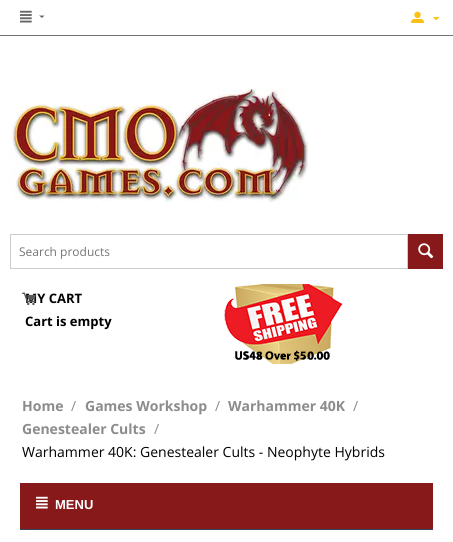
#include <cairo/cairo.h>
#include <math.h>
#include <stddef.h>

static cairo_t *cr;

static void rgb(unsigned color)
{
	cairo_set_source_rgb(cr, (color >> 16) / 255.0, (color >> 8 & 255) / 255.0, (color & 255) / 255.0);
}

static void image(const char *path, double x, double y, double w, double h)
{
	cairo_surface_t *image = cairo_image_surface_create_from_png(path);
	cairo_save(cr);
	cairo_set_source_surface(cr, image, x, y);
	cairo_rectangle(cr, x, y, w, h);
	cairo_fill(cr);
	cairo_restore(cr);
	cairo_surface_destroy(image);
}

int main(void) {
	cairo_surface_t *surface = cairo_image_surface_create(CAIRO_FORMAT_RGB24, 453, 542);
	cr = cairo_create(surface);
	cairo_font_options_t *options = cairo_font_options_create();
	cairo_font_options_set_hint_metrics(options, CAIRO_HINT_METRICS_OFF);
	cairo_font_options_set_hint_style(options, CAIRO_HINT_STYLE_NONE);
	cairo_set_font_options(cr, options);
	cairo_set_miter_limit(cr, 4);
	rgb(0xffffff);
	cairo_paint(cr);
	rgb(0x737373);
	cairo_rectangle(cr, 0, 35, 453, 1);
	cairo_fill(cr);
	image("img/1.png", 20, 10, 12, 13);
	rgb(0x666666);
	cairo_new_path(cr);
	cairo_move_to(cr, 42, 18);
	cairo_line_to(cr, 39, 15.5);
	cairo_line_to(cr, 44.5, 15.5);
	cairo_close_path(cr);
	cairo_fill(cr);
	image("img/2.png", 411, 11, 13, 12);
	rgb(0xfcc017);
	cairo_new_path(cr);
	cairo_move_to(cr, 436, 20.5);
	cairo_line_to(cr, 433, 17);
	cairo_line_to(cr, 439.5, 17);
	cairo_close_path(cr);
	cairo_fill(cr);
	image("img/3.png", 10, 86, 299, 116);
	cairo_rectangle(cr, 10.5, 234.5, 397, 34);
	rgb(0xcccccc);
	cairo_set_line_width(cr, 1);
	cairo_stroke(cr);
	rgb(0x88191b);
	cairo_rectangle(cr, 408, 234, 35, 35);
	cairo_fill(cr);
	image("img/4.png", 418, 243, 16, 16);
	image("img/6.png", 224, 284, 119, 80);
	cairo_rectangle(cr, 20, 483, 413, 46);
	cairo_fill(cr);
	rgb(0x34495e);
	cairo_rectangle(cr, 20, 529, 413, 1);
	cairo_fill(cr);
	image("img/7.png", 36, 496, 12, 13);
	cairo_select_font_face(cr, "Open Sans", CAIRO_FONT_SLANT_NORMAL, CAIRO_FONT_WEIGHT_NORMAL);
	cairo_set_font_size(cr, 12);
	rgb(0x757575);
	cairo_move_to(cr, 19, 256);
	cairo_show_text(cr, "Search products");
	cairo_select_font_face(cr, "Open Sans", CAIRO_FONT_SLANT_NORMAL, CAIRO_FONT_WEIGHT_BOLD);
	cairo_set_font_size(cr, 13);
	rgb(0x000000);
	cairo_move_to(cr, 25, 303);
	cairo_show_text(cr, "MY CART");
	image("img/5.png", 22, 292, 14, 14);
	cairo_move_to(cr, 25, 326);
	cairo_show_text(cr, "Cart is empty");
	cairo_set_font_size(cr, 14);
	rgb(0x8c8c8c);
	cairo_move_to(cr, 22, 411);
	cairo_show_text(cr, "Home");
	cairo_select_font_face(cr, "Open Sans", CAIRO_FONT_SLANT_NORMAL, CAIRO_FONT_WEIGHT_NORMAL);
	cairo_move_to(cr, 71, 411);
	cairo_show_text(cr, "/");
	cairo_select_font_face(cr, "Open Sans", CAIRO_FONT_SLANT_NORMAL, CAIRO_FONT_WEIGHT_BOLD);
	cairo_move_to(cr, 85, 411);
	cairo_show_text(cr, "Games Workshop");
	cairo_select_font_face(cr, "Open Sans", CAIRO_FONT_SLANT_NORMAL, CAIRO_FONT_WEIGHT_NORMAL);
	cairo_move_to(cr, 215, 411);
	cairo_show_text(cr, "/");
	cairo_select_font_face(cr, "Open Sans", CAIRO_FONT_SLANT_NORMAL, CAIRO_FONT_WEIGHT_BOLD);
	cairo_move_to(cr, 228, 411);
	cairo_show_text(cr, "Warhammer 40K");
	cairo_select_font_face(cr, "Open Sans", CAIRO_FONT_SLANT_NORMAL, CAIRO_FONT_WEIGHT_NORMAL);
	cairo_move_to(cr, 353, 411);
	cairo_show_text(cr, "/");
	cairo_select_font_face(cr, "Open Sans", CAIRO_FONT_SLANT_NORMAL, CAIRO_FONT_WEIGHT_BOLD);
	cairo_move_to(cr, 22, 434);
	cairo_show_text(cr, "Genestealer Cults");
	cairo_select_font_face(cr, "Open Sans", CAIRO_FONT_SLANT_NORMAL, CAIRO_FONT_WEIGHT_NORMAL);
	cairo_move_to(cr, 154, 434);
	cairo_show_text(cr, "/");
	rgb(0x000000);
	cairo_move_to(cr, 22, 457);
	cairo_show_text(cr, "Warhammer 40K: Genestealer Cults - Neophyte Hybrids");
	cairo_select_font_face(cr, "Liberation Sans", CAIRO_FONT_SLANT_NORMAL, CAIRO_FONT_WEIGHT_BOLD);
	cairo_set_font_size(cr, 13);
	rgb(0xffffff);
	cairo_move_to(cr, 55, 509);
	cairo_show_text(cr, "MENU");
	cairo_surface_write_to_png(surface, "page.png");
	cairo_font_options_destroy(options);
	cairo_destroy(cr);
	cairo_surface_destroy(surface);
	return 0;
}
